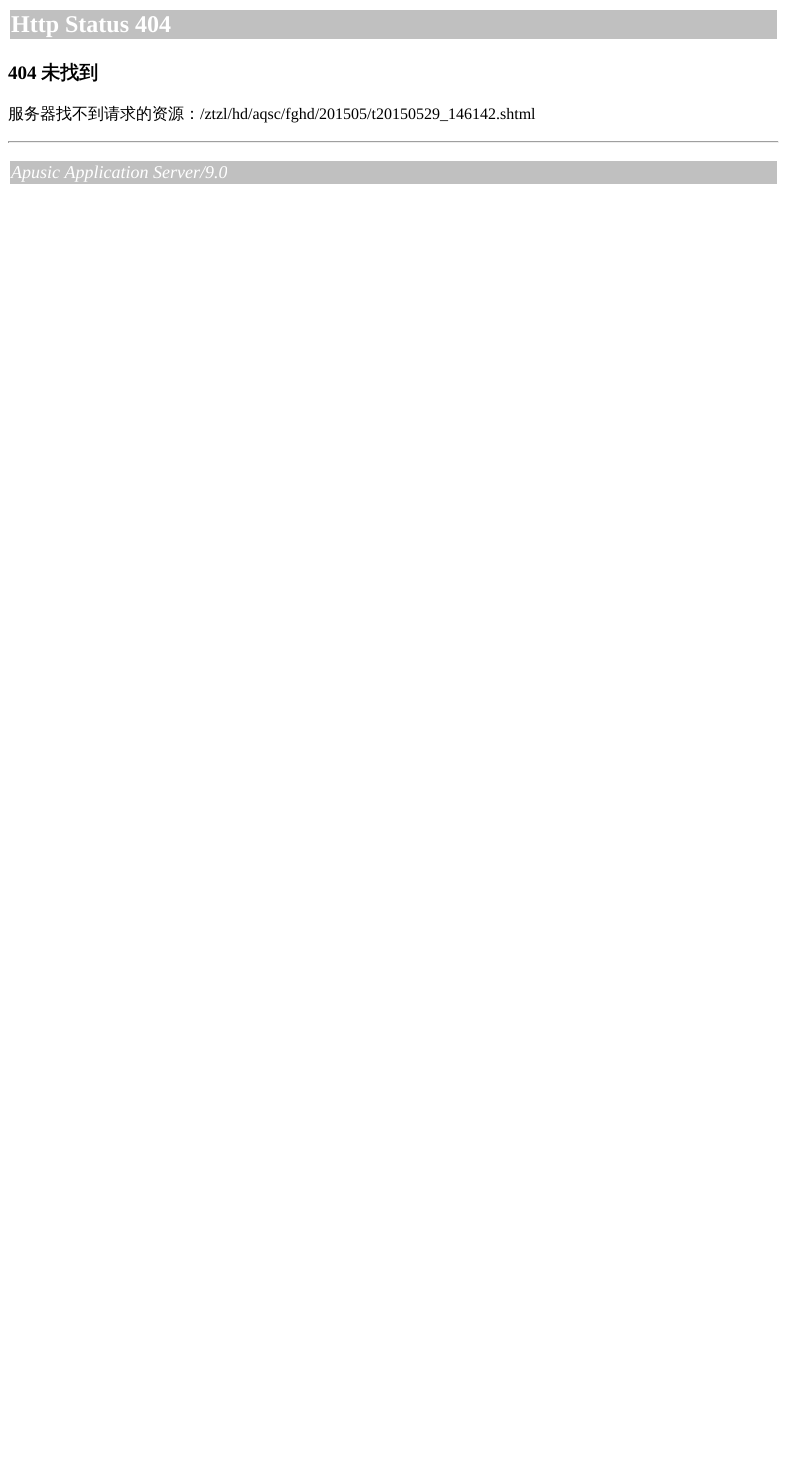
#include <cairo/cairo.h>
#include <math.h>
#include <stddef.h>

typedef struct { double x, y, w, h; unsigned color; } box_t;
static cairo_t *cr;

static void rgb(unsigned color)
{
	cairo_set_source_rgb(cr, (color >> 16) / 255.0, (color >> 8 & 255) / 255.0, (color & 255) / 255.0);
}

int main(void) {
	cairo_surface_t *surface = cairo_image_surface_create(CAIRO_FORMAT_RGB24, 787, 1481);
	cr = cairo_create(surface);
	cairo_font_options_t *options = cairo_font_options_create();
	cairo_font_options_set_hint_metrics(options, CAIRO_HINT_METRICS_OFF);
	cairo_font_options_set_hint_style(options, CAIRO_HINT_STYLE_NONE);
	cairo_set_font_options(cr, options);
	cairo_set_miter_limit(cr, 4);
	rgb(0xffffff);
	cairo_paint(cr);
	{
		static const box_t items[] = {
			{10, 10, 767, 29, 0xc0c0c0},
			{8, 141, 771, 1, 0x9f9f9f},
			{778, 141, 1, 2, 0xeeeeee},
			{8, 142, 771, 1, 0xeeeeee},
			{8, 141, 1, 2, 0x9f9f9f},
			{10, 161, 767, 23, 0xc0c0c0},
		};
		for (size_t i = 0; i < sizeof items / sizeof *items; i++) {
			rgb(items[i].color);
			cairo_rectangle(cr, items[i].x, items[i].y, items[i].w, items[i].h);
			cairo_fill(cr);
		}
	}
	cairo_select_font_face(cr, "Liberation Serif", CAIRO_FONT_SLANT_NORMAL, CAIRO_FONT_WEIGHT_BOLD);
	cairo_set_font_size(cr, 24);
	rgb(0xffffff);
	cairo_move_to(cr, 11, 32);
	cairo_show_text(cr, "Http Status 404");
	cairo_set_font_size(cr, 19);
	rgb(0x000000);
	cairo_move_to(cr, 8, 79);
	cairo_show_text(cr, "404");
	cairo_select_font_face(cr, "WenQuanYi Zen Hei", CAIRO_FONT_SLANT_NORMAL, CAIRO_FONT_WEIGHT_BOLD);
	cairo_move_to(cr, 41, 79);
	cairo_show_text(cr, "未找到");
	cairo_select_font_face(cr, "WenQuanYi Zen Hei Medium", CAIRO_FONT_SLANT_NORMAL, CAIRO_FONT_WEIGHT_NORMAL);
	cairo_set_font_size(cr, 16);
	cairo_move_to(cr, 8, 119);
	cairo_show_text(cr, "服务器找不到请求的资源：");
	cairo_select_font_face(cr, "Liberation Serif", CAIRO_FONT_SLANT_NORMAL, CAIRO_FONT_WEIGHT_NORMAL);
	cairo_move_to(cr, 200, 119);
	cairo_show_text(cr, "/ztzl/hd/aqsc/fghd/201505/t20150529_146142.shtml");
	cairo_select_font_face(cr, "Liberation Serif", CAIRO_FONT_SLANT_ITALIC, CAIRO_FONT_WEIGHT_NORMAL);
	cairo_set_font_size(cr, 18);
	rgb(0xffffff);
	cairo_move_to(cr, 11, 178);
	cairo_show_text(cr, "Apusic Application Server/9.0");
	cairo_surface_write_to_png(surface, "page.png");
	cairo_font_options_destroy(options);
	cairo_destroy(cr);
	cairo_surface_destroy(surface);
	return 0;
}
